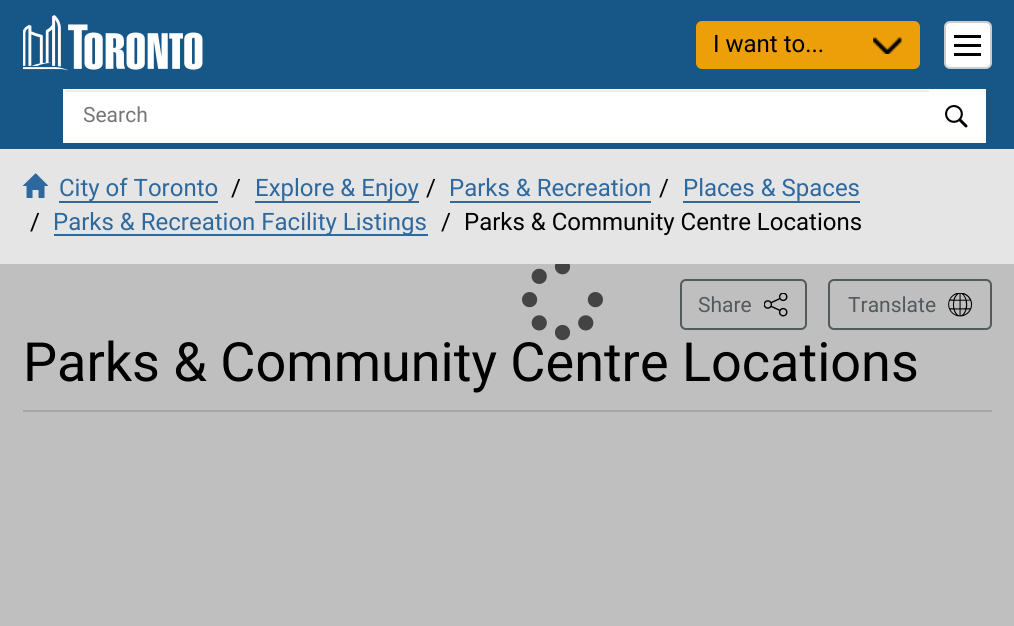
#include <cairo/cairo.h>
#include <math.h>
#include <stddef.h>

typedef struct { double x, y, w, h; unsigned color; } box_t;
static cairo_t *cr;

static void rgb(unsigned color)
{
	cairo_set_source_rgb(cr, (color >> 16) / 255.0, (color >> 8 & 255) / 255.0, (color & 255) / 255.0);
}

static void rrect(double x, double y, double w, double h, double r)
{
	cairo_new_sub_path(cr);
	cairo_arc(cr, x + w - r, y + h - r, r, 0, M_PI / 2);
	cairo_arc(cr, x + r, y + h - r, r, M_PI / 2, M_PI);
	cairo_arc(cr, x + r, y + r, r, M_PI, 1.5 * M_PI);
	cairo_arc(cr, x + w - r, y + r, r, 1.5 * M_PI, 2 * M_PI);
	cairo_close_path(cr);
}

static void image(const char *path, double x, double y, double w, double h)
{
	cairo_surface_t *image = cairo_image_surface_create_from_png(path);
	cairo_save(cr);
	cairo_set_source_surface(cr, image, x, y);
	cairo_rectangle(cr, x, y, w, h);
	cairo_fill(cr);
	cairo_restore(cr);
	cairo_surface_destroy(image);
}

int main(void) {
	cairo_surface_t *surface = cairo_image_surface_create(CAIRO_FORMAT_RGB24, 1014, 626);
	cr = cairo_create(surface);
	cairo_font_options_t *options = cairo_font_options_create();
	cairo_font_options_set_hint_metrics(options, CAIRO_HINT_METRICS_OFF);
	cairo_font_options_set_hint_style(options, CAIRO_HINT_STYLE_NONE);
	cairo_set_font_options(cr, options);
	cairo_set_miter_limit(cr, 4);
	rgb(0xbfbfbf);
	cairo_paint(cr);
	rgb(0x165788);
	cairo_rectangle(cr, 0, 0, 1014, 149);
	cairo_fill(cr);
	image("img/1.png", 23, 15, 180, 56);
	rgb(0xec9f09);
	rrect(696, 21, 224, 48, 6);
	cairo_fill(cr);
	image("img/2.png", 873, 37, 29, 17);
	rgb(0xffffff);
	rrect(945, 22, 46, 46, 5);
	cairo_fill_preserve(cr);
	rgb(0xcccccc);
	cairo_stroke(cr);
	{
		static const box_t items[] = {
			{954, 44, 27, 3, 0x000000},
			{954, 35, 27, 3, 0x000000},
			{954, 53, 27, 3, 0x000000},
			{63, 89, 923, 54, 0xffffff},
		};
		for (size_t i = 0; i < sizeof items / sizeof *items; i++) {
			rgb(items[i].color);
			cairo_rectangle(cr, items[i].x, items[i].y, items[i].w, items[i].h);
			cairo_fill(cr);
		}
	}
	image("img/3.png", 945, 105, 23, 23);
	rgb(0xececec);
	cairo_rectangle(cr, 65, 90, 864, 2);
	cairo_fill(cr);
	rgb(0xe5e5e5);
	cairo_rectangle(cr, 0, 149, 1014, 115);
	cairo_fill(cr);
	image("img/4.png", 22, 173, 27, 25);
	{
		static const box_t items[] = {
			{59, 201, 159, 2, 0x2d699e},
			{255, 201, 164, 2, 0x2d699e},
			{450, 201, 201, 2, 0x2d699e},
			{683, 201, 177, 2, 0x2d699e},
			{54, 234, 374, 2, 0x2d699e},
			{23, 410, 969, 2, 0xa6a6a6},
		};
		for (size_t i = 0; i < sizeof items / sizeof *items; i++) {
			rgb(items[i].color);
			cairo_rectangle(cr, items[i].x, items[i].y, items[i].w, items[i].h);
			cairo_fill(cr);
		}
	}
	image("img/6.png", 764, 293, 24, 24);
	rrect(681, 280, 125, 49, 5);
	rgb(0x535a5d);
	cairo_stroke(cr);
	image("img/7.png", 948, 293, 24, 24);
	rrect(829, 280, 162, 49, 5);
	cairo_stroke(cr);
	cairo_select_font_face(cr, "Roboto", CAIRO_FONT_SLANT_NORMAL, CAIRO_FONT_WEIGHT_NORMAL);
	cairo_set_font_size(cr, 24);
	rgb(0x000000);
	cairo_move_to(cr, 713, 52);
	cairo_show_text(cr, "I want to...");
	cairo_set_font_size(cr, 21);
	rgb(0x767676);
	cairo_move_to(cr, 83, 122);
	cairo_show_text(cr, "Search");
	cairo_set_font_size(cr, 24);
	rgb(0x2d699e);
	cairo_move_to(cr, 59, 196);
	cairo_show_text(cr, "City of Toronto");
	rgb(0x000000);
	cairo_move_to(cr, 231, 196);
	cairo_show_text(cr, "/");
	rgb(0x2d699e);
	cairo_move_to(cr, 255, 196);
	cairo_show_text(cr, "Explore & Enjoy");
	rgb(0x000000);
	cairo_move_to(cr, 426, 196);
	cairo_show_text(cr, "/");
	rgb(0x2d699e);
	cairo_move_to(cr, 449, 196);
	cairo_show_text(cr, "Parks & Recreation");
	rgb(0x000000);
	cairo_move_to(cr, 659, 196);
	cairo_show_text(cr, "/");
	rgb(0x2d699e);
	cairo_move_to(cr, 683, 196);
	cairo_show_text(cr, "Places & Spaces");
	rgb(0x000000);
	cairo_move_to(cr, 30, 230);
	cairo_show_text(cr, "/");
	rgb(0x2d699e);
	cairo_move_to(cr, 53, 230);
	cairo_show_text(cr, "Parks & Recreation Facility Listings");
	rgb(0x000000);
	cairo_move_to(cr, 441, 230);
	cairo_show_text(cr, "/");
	cairo_move_to(cr, 464, 230);
	cairo_show_text(cr, "Parks & Community Centre Locations");
	cairo_set_font_size(cr, 21);
	rgb(0x535a5d);
	cairo_move_to(cr, 698, 312);
	cairo_show_text(cr, "Share");
	cairo_move_to(cr, 848, 312);
	cairo_show_text(cr, "Translate");
	cairo_set_font_size(cr, 54);
	rgb(0x000000);
	cairo_move_to(cr, 23, 381);
	cairo_show_text(cr, "Parks & Community Centre Locations");
	image("img/5.png", 522, 264, 81, 77);
	cairo_surface_write_to_png(surface, "page.png");
	cairo_font_options_destroy(options);
	cairo_destroy(cr);
	cairo_surface_destroy(surface);
	return 0;
}
